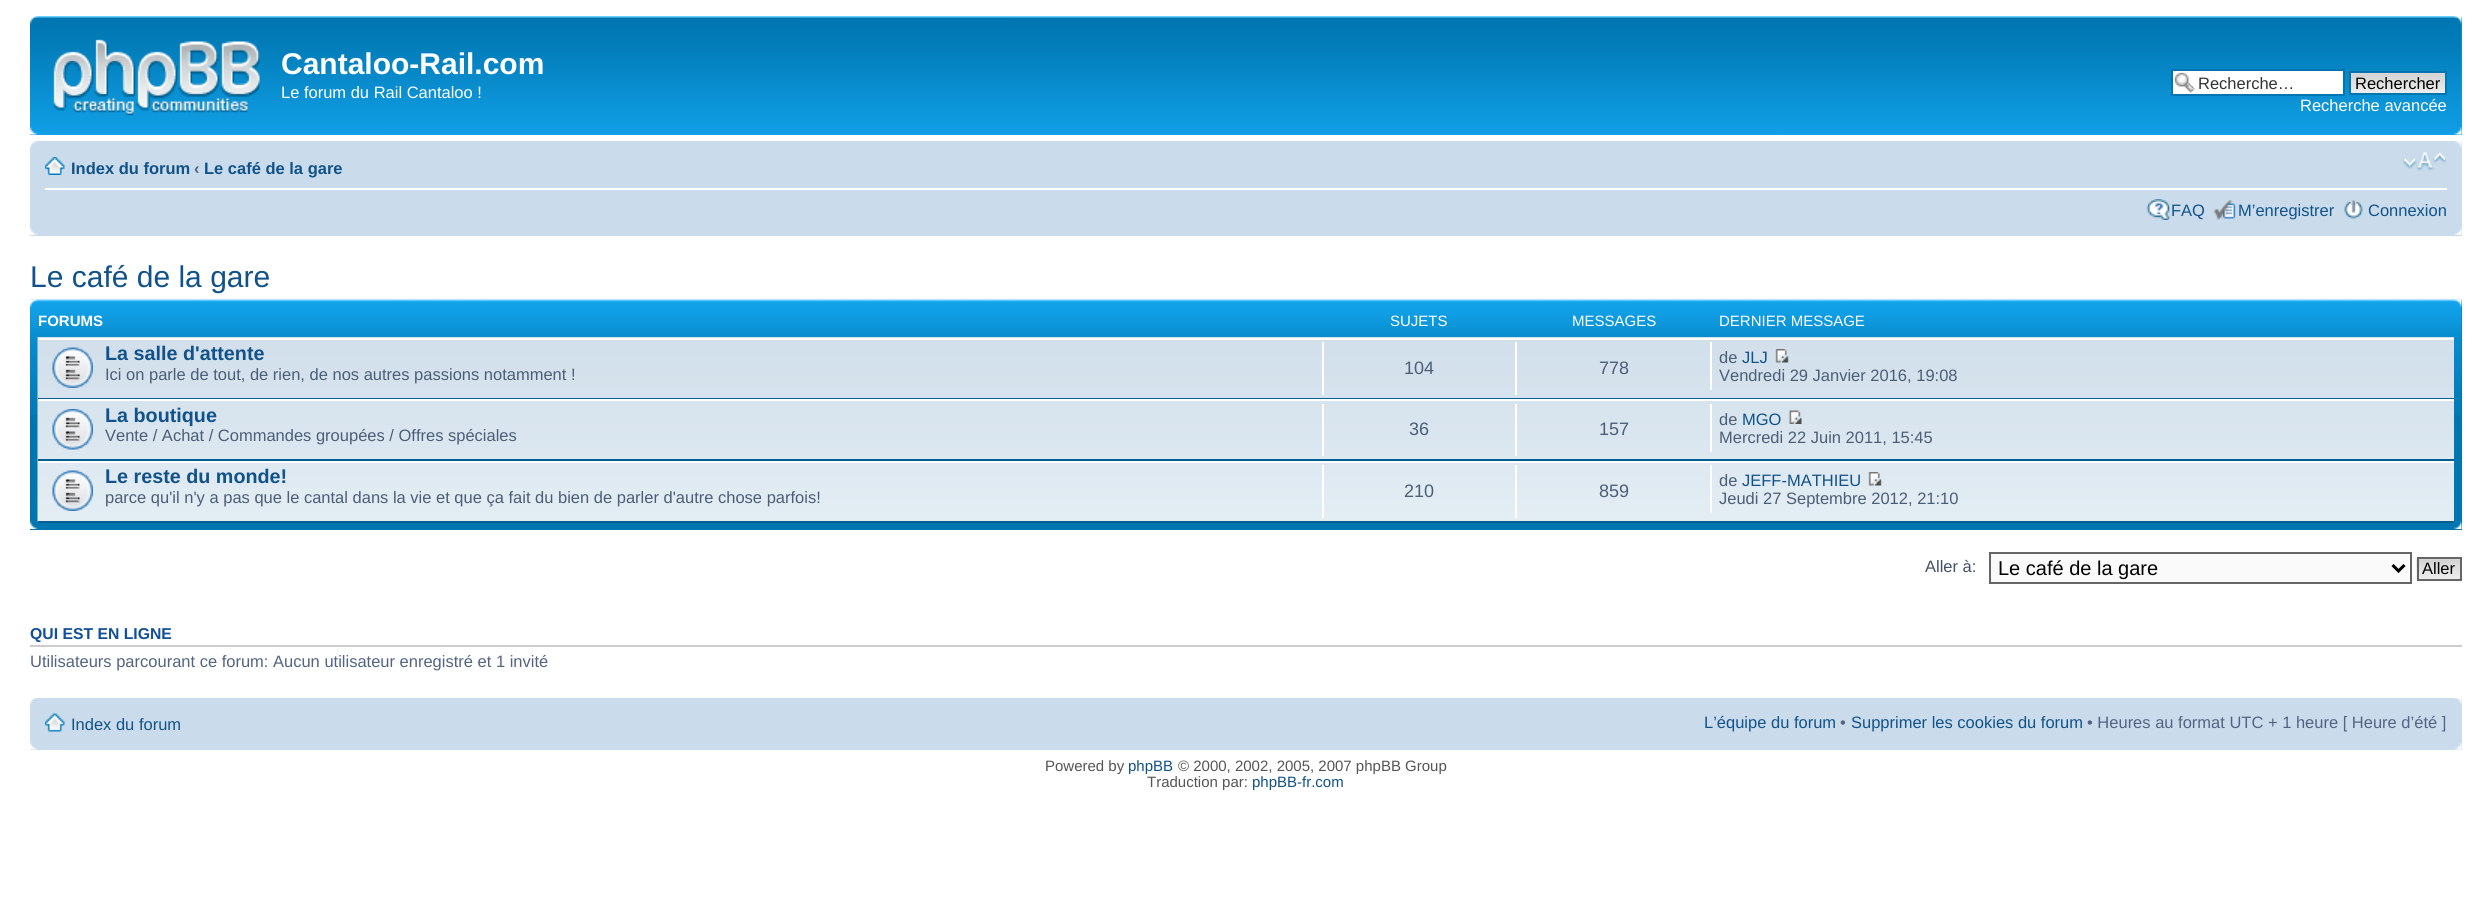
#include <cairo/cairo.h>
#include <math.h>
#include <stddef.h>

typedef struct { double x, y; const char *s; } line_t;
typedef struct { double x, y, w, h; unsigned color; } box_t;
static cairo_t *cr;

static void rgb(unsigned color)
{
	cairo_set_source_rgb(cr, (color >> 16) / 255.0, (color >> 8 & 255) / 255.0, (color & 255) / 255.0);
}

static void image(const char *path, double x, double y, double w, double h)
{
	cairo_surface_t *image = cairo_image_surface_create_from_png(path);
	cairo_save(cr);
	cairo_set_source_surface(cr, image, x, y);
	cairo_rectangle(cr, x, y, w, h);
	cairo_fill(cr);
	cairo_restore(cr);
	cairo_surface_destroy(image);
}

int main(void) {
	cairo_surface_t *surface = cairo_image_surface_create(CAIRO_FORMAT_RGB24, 2491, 904);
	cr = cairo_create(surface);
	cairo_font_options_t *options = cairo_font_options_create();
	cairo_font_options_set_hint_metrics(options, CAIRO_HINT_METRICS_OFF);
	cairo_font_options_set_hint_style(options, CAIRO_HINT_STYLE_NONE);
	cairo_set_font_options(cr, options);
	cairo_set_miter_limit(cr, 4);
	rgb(0xffffff);
	cairo_paint(cr);
	rgb(0x12a3eb);
	cairo_rectangle(cr, 30, 17, 2432, 118);
	cairo_fill(cr);
	image("img/1.png", 30, 16, 2432, 118);
	image("img/2.png", 30, 16, 8, 8);
	image("img/3.png", 2453, 16, 9, 8);
	image("img/4.png", 53, 39, 207, 77);
	rgb(0xffffff);
	cairo_rectangle(cr, 2173, 71, 170, 23);
	cairo_fill(cr);
	image("img/5.png", 2174, 72, 21, 21);
	cairo_rectangle(cr, 2172, 70, 172, 25);
	rgb(0x0075b0);
	cairo_stroke(cr);
	image("img/6.png", 2351, 73, 94, 20);
	cairo_rectangle(cr, 2350, 72, 96, 22);
	cairo_stroke(cr);
	image("img/7.png", 30, 127, 8, 8);
	image("img/8.png", 2453, 127, 9, 8);
	rgb(0xcadceb);
	cairo_rectangle(cr, 30, 141, 2432, 95);
	cairo_fill(cr);
	image("img/9.png", 30, 141, 8, 7);
	image("img/10.png", 2454, 141, 8, 7);
	rgb(0xffffff);
	cairo_rectangle(cr, 45, 188, 2402, 2);
	cairo_fill(cr);
	image("img/11.png", 45, 157, 20, 18);
	image("img/12.png", 2403, 152, 44, 19);
	image("img/13.png", 2146, 199, 25, 21);
	image("img/14.png", 2213, 200, 23, 20);
	image("img/15.png", 2344, 200, 19, 19);
	image("img/16.png", 30, 227, 8, 8);
	image("img/17.png", 2454, 227, 8, 8);
	rgb(0x0076b1);
	cairo_rectangle(cr, 30, 300, 2432, 230);
	cairo_fill(cr);
	image("img/18.png", 30, 299, 2432, 116);
	image("img/19.png", 30, 299, 8, 8);
	image("img/20.png", 2453, 299, 9, 8);
	image("img/21.png", 37, 337, 2417, 185);
	rgb(0xffffff);
	cairo_rectangle(cr, 38, 338, 2416, 2);
	cairo_fill(cr);
	rgb(0x00608f);
	cairo_rectangle(cr, 38, 398, 2416, 1);
	cairo_fill(cr);
	image("img/22.png", 52, 347, 41, 41);
	{
		static const box_t items[] = {
			{1322, 342, 2, 53, 0xffffff},
			{1515, 342, 2, 53, 0xffffff},
			{1710, 342, 2, 48, 0xffffff},
		};
		for (size_t i = 0; i < sizeof items / sizeof *items; i++) {
			rgb(items[i].color);
			cairo_rectangle(cr, items[i].x, items[i].y, items[i].w, items[i].h);
			cairo_fill(cr);
		}
	}
	image("img/23.png", 1775, 349, 14, 14);
	cairo_rectangle(cr, 38, 399, 2416, 2);
	cairo_fill(cr);
	rgb(0x00608f);
	cairo_rectangle(cr, 38, 459, 2416, 2);
	cairo_fill(cr);
	image("img/24.png", 52, 409, 41, 41);
	{
		static const box_t items[] = {
			{1322, 404, 2, 52, 0xffffff},
			{1515, 404, 2, 52, 0xffffff},
			{1710, 404, 2, 48, 0xffffff},
		};
		for (size_t i = 0; i < sizeof items / sizeof *items; i++) {
			rgb(items[i].color);
			cairo_rectangle(cr, items[i].x, items[i].y, items[i].w, items[i].h);
			cairo_fill(cr);
		}
	}
	image("img/25.png", 1789, 410, 13, 14);
	cairo_rectangle(cr, 38, 461, 2416, 2);
	cairo_fill(cr);
	rgb(0x00608f);
	cairo_rectangle(cr, 38, 521, 2416, 2);
	cairo_fill(cr);
	image("img/26.png", 52, 470, 41, 41);
	{
		static const box_t items[] = {
			{1322, 465, 2, 53, 0xffffff},
			{1515, 465, 2, 53, 0xffffff},
			{1710, 465, 2, 48, 0xffffff},
		};
		for (size_t i = 0; i < sizeof items / sizeof *items; i++) {
			rgb(items[i].color);
			cairo_rectangle(cr, items[i].x, items[i].y, items[i].w, items[i].h);
			cairo_fill(cr);
		}
	}
	image("img/27.png", 1868, 472, 14, 14);
	image("img/28.png", 30, 521, 8, 8);
	image("img/29.png", 2453, 521, 9, 8);
	rgb(0xfafafa);
	cairo_rectangle(cr, 1990, 553, 421, 30);
	cairo_fill_preserve(cr);
	rgb(0x666666);
	cairo_stroke(cr);
	cairo_new_path(cr);
	cairo_move_to(cr, 2392.5, 565);
	cairo_line_to(cr, 2398.5, 571);
	cairo_line_to(cr, 2404.5, 565);
	rgb(0x000000);
	cairo_set_line_width(cr, 3);
	cairo_stroke(cr);
	image("img/30.png", 2416, 558, 44, 22);
	cairo_rectangle(cr, 2418, 558, 43, 22);
	rgb(0x666666);
	cairo_set_line_width(cr, 2);
	cairo_stroke(cr);
	rgb(0xcccccc);
	cairo_rectangle(cr, 30, 645, 2432, 2);
	cairo_fill(cr);
	rgb(0xcadceb);
	cairo_rectangle(cr, 30, 698, 2432, 52);
	cairo_fill(cr);
	image("img/31.png", 30, 698, 7, 7);
	image("img/32.png", 2454, 698, 8, 7);
	image("img/33.png", 45, 713, 20, 19);
	image("img/34.png", 30, 742, 8, 8);
	image("img/35.png", 2454, 742, 8, 8);
	cairo_select_font_face(cr, "Liberation Sans", CAIRO_FONT_SLANT_NORMAL, CAIRO_FONT_WEIGHT_BOLD);
	cairo_set_font_size(cr, 30);
	rgb(0xffffff);
	cairo_move_to(cr, 281, 74);
	cairo_show_text(cr, "Cantaloo-Rail.com");
	cairo_select_font_face(cr, "Liberation Sans", CAIRO_FONT_SLANT_NORMAL, CAIRO_FONT_WEIGHT_NORMAL);
	cairo_set_font_size(cr, 16.5);
	cairo_move_to(cr, 281, 98);
	cairo_show_text(cr, "Le forum du Rail Cantaloo !");
	rgb(0x333333);
	cairo_move_to(cr, 2198, 89);
	cairo_show_text(cr, "Recherche…");
	rgb(0x000000);
	cairo_move_to(cr, 2355, 89);
	cairo_show_text(cr, "Rechercher");
	rgb(0xffffff);
	cairo_move_to(cr, 2300, 111);
	cairo_show_text(cr, "Recherche avancée");
	cairo_select_font_face(cr, "Liberation Sans", CAIRO_FONT_SLANT_NORMAL, CAIRO_FONT_WEIGHT_BOLD);
	rgb(0x105289);
	cairo_move_to(cr, 71, 174);
	cairo_show_text(cr, "Index du forum");
	rgb(0x536482);
	cairo_move_to(cr, 194, 174);
	cairo_show_text(cr, "‹");
	rgb(0x105289);
	cairo_move_to(cr, 204, 174);
	cairo_show_text(cr, "Le café de la gare");
	cairo_select_font_face(cr, "Liberation Sans", CAIRO_FONT_SLANT_NORMAL, CAIRO_FONT_WEIGHT_NORMAL);
	{
		static const line_t items[] = {
			{2171, 216, "FAQ"},
			{2238, 216, "M’enregistrer"},
			{2368, 216, "Connexion"},
		};
		for (size_t i = 0; i < sizeof items / sizeof *items; i++) {
			cairo_move_to(cr, items[i].x, items[i].y);
			cairo_show_text(cr, items[i].s);
		}
	}
	cairo_set_font_size(cr, 30);
	cairo_move_to(cr, 30, 287);
	cairo_show_text(cr, "Le café de la gare");
	cairo_select_font_face(cr, "Liberation Sans", CAIRO_FONT_SLANT_NORMAL, CAIRO_FONT_WEIGHT_BOLD);
	cairo_set_font_size(cr, 15);
	rgb(0xffffff);
	cairo_move_to(cr, 38, 326);
	cairo_show_text(cr, "FORUMS");
	cairo_select_font_face(cr, "Liberation Sans", CAIRO_FONT_SLANT_NORMAL, CAIRO_FONT_WEIGHT_NORMAL);
	{
		static const line_t items[] = {
			{1390, 326, "SUJETS"},
			{1572, 326, "MESSAGES"},
			{1719, 326, "DERNIER MESSAGE"},
		};
		for (size_t i = 0; i < sizeof items / sizeof *items; i++) {
			cairo_move_to(cr, items[i].x, items[i].y);
			cairo_show_text(cr, items[i].s);
		}
	}
	cairo_select_font_face(cr, "Liberation Sans", CAIRO_FONT_SLANT_NORMAL, CAIRO_FONT_WEIGHT_BOLD);
	cairo_set_font_size(cr, 19.75);
	rgb(0x105289);
	cairo_move_to(cr, 105, 360);
	cairo_show_text(cr, "La salle d'attente");
	cairo_select_font_face(cr, "Liberation Sans", CAIRO_FONT_SLANT_NORMAL, CAIRO_FONT_WEIGHT_NORMAL);
	cairo_set_font_size(cr, 16.5);
	rgb(0x4c5d77);
	cairo_move_to(cr, 105, 380);
	cairo_show_text(cr, "Ici on parle de tout, de rien, de nos autres passions notamment !");
	cairo_set_font_size(cr, 18);
	cairo_move_to(cr, 1404, 374);
	cairo_show_text(cr, "104");
	cairo_move_to(cr, 1599, 374);
	cairo_show_text(cr, "778");
	cairo_set_font_size(cr, 16.5);
	cairo_move_to(cr, 1719, 363);
	cairo_show_text(cr, "de");
	rgb(0x105289);
	cairo_move_to(cr, 1742, 363);
	cairo_show_text(cr, "JLJ");
	rgb(0x4c5d77);
	cairo_move_to(cr, 1719, 381);
	cairo_show_text(cr, "Vendredi 29 Janvier 2016, 19:08");
	cairo_select_font_face(cr, "Liberation Sans", CAIRO_FONT_SLANT_NORMAL, CAIRO_FONT_WEIGHT_BOLD);
	cairo_set_font_size(cr, 19.75);
	rgb(0x105289);
	cairo_move_to(cr, 105, 422);
	cairo_show_text(cr, "La boutique");
	cairo_select_font_face(cr, "Liberation Sans", CAIRO_FONT_SLANT_NORMAL, CAIRO_FONT_WEIGHT_NORMAL);
	cairo_set_font_size(cr, 16.5);
	rgb(0x4c5d77);
	cairo_move_to(cr, 105, 441);
	cairo_show_text(cr, "Vente / Achat / Commandes groupées / Offres spéciales");
	cairo_set_font_size(cr, 18);
	cairo_move_to(cr, 1409, 435);
	cairo_show_text(cr, "36");
	cairo_move_to(cr, 1599, 435);
	cairo_show_text(cr, "157");
	cairo_set_font_size(cr, 16.5);
	cairo_move_to(cr, 1719, 425);
	cairo_show_text(cr, "de");
	rgb(0x105289);
	cairo_move_to(cr, 1742, 425);
	cairo_show_text(cr, "MGO");
	rgb(0x4c5d77);
	cairo_move_to(cr, 1719, 443);
	cairo_show_text(cr, "Mercredi 22 Juin 2011, 15:45");
	cairo_select_font_face(cr, "Liberation Sans", CAIRO_FONT_SLANT_NORMAL, CAIRO_FONT_WEIGHT_BOLD);
	cairo_set_font_size(cr, 19.75);
	rgb(0x105289);
	cairo_move_to(cr, 105, 483);
	cairo_show_text(cr, "Le reste du monde!");
	cairo_select_font_face(cr, "Liberation Sans", CAIRO_FONT_SLANT_NORMAL, CAIRO_FONT_WEIGHT_NORMAL);
	cairo_set_font_size(cr, 16.5);
	rgb(0x4c5d77);
	cairo_move_to(cr, 105, 503);
	cairo_show_text(cr, "parce qu'il n'y a pas que le cantal dans la vie et que ça fait du bien de parler d'autre chose parfois!");
	cairo_set_font_size(cr, 18);
	cairo_move_to(cr, 1404, 497);
	cairo_show_text(cr, "210");
	cairo_move_to(cr, 1599, 497);
	cairo_show_text(cr, "859");
	cairo_set_font_size(cr, 16.5);
	cairo_move_to(cr, 1719, 486);
	cairo_show_text(cr, "de");
	rgb(0x105289);
	cairo_move_to(cr, 1742, 486);
	cairo_show_text(cr, "JEFF-MATHIEU");
	rgb(0x4c5d77);
	cairo_move_to(cr, 1719, 504);
	cairo_show_text(cr, "Jeudi 27 Septembre 2012, 21:10");
	rgb(0x425067);
	cairo_move_to(cr, 1925, 572);
	cairo_show_text(cr, "Aller à:");
	cairo_set_font_size(cr, 20);
	rgb(0x000000);
	cairo_move_to(cr, 1998, 575);
	cairo_show_text(cr, "Le café de la gare");
	cairo_set_font_size(cr, 16.5);
	cairo_move_to(cr, 2422, 574);
	cairo_show_text(cr, "Aller");
	cairo_select_font_face(cr, "Liberation Sans", CAIRO_FONT_SLANT_NORMAL, CAIRO_FONT_WEIGHT_BOLD);
	cairo_set_font_size(cr, 15.75);
	rgb(0x115098);
	cairo_move_to(cr, 30, 639);
	cairo_show_text(cr, "QUI EST EN LIGNE");
	cairo_select_font_face(cr, "Liberation Sans", CAIRO_FONT_SLANT_NORMAL, CAIRO_FONT_WEIGHT_NORMAL);
	cairo_set_font_size(cr, 16.5);
	rgb(0x536482);
	cairo_move_to(cr, 30, 667);
	cairo_show_text(cr, "Utilisateurs parcourant ce forum: Aucun utilisateur enregistré et 1 invité");
	rgb(0x105289);
	cairo_move_to(cr, 71, 730);
	cairo_show_text(cr, "Index du forum");
	cairo_move_to(cr, 1704, 728);
	cairo_show_text(cr, "L’équipe du forum");
	rgb(0x536482);
	cairo_move_to(cr, 1840, 728);
	cairo_show_text(cr, "•");
	rgb(0x105289);
	cairo_move_to(cr, 1851, 728);
	cairo_show_text(cr, "Supprimer les cookies du forum");
	rgb(0x536482);
	cairo_move_to(cr, 2087, 728);
	cairo_show_text(cr, "• Heures au format UTC + 1 heure [ Heure d’été ]");
	cairo_set_font_size(cr, 15);
	rgb(0x555555);
	cairo_move_to(cr, 1045, 771);
	cairo_show_text(cr, "Powered by");
	rgb(0x105289);
	cairo_move_to(cr, 1128, 771);
	cairo_show_text(cr, "phpBB");
	rgb(0x555555);
	cairo_move_to(cr, 1178, 771);
	cairo_show_text(cr, "© 2000, 2002, 2005, 2007 phpBB Group");
	cairo_move_to(cr, 1147, 787);
	cairo_show_text(cr, "Traduction par:");
	rgb(0x105289);
	cairo_move_to(cr, 1252, 787);
	cairo_show_text(cr, "phpBB-fr.com");
	cairo_surface_write_to_png(surface, "page.png");
	cairo_font_options_destroy(options);
	cairo_destroy(cr);
	cairo_surface_destroy(surface);
	return 0;
}
